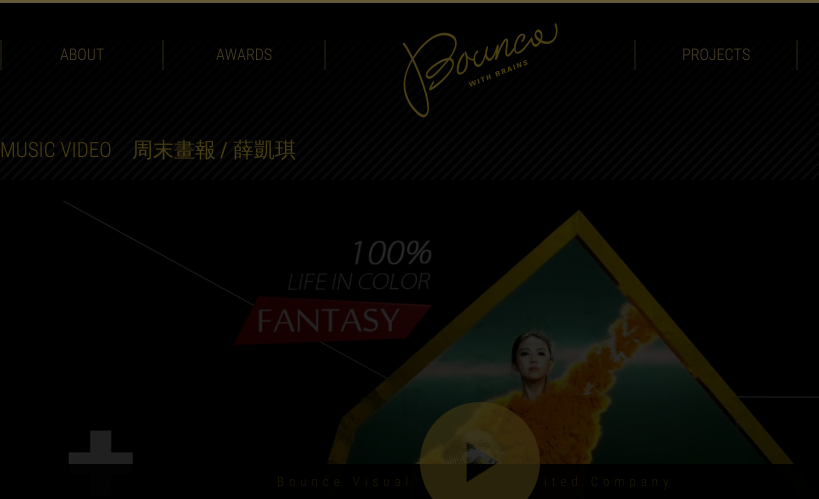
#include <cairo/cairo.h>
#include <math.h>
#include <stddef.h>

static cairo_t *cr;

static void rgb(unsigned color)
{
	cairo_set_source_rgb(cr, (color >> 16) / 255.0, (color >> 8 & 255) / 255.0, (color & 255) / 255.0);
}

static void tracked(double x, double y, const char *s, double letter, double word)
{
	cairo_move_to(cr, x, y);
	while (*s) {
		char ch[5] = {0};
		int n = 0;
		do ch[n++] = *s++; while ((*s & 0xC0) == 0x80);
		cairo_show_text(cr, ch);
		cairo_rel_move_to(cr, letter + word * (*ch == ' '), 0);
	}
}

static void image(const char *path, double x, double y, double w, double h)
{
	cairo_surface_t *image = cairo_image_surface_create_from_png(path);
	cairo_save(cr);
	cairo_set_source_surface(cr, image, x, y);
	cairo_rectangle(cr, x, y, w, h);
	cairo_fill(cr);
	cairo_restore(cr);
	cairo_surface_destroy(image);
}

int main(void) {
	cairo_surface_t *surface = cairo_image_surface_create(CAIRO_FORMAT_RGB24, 819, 499);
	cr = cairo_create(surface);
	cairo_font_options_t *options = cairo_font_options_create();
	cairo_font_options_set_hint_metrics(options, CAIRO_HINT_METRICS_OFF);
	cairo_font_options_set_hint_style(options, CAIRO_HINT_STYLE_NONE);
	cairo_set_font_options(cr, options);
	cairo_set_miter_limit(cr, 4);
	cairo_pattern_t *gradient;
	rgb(0xffffff);
	cairo_paint(cr);
	image("img/1.png", 0, 3, 819, 177);
	rgb(0x655a37);
	cairo_rectangle(cr, 0, 0, 819, 3);
	cairo_fill(cr);
	image("img/3.png", 0, 180, 819, 319);
	image("img/4.png", 61, 200, 758, 299);
	cairo_set_source_rgba(cr, 0, 0, 0, 0.95);
	cairo_rectangle(cr, 67, 464, 752, 35);
	cairo_fill(cr);
	cairo_select_font_face(cr, "Roboto Condensed Light", CAIRO_FONT_SLANT_NORMAL, CAIRO_FONT_WEIGHT_NORMAL);
	cairo_set_font_size(cr, 21);
	rgb(0x4b4013);
	cairo_move_to(cr, 0, 157);
	cairo_show_text(cr, "MUSIC VIDEO");
	cairo_select_font_face(cr, "WenQuanYi Zen Hei Medium", CAIRO_FONT_SLANT_NORMAL, CAIRO_FONT_WEIGHT_NORMAL);
	cairo_move_to(cr, 132, 157);
	cairo_show_text(cr, "周末畫報");
	cairo_select_font_face(cr, "Roboto Condensed", CAIRO_FONT_SLANT_NORMAL, CAIRO_FONT_WEIGHT_NORMAL);
	cairo_move_to(cr, 220, 157);
	cairo_show_text(cr, "/");
	cairo_select_font_face(cr, "WenQuanYi Zen Hei Medium", CAIRO_FONT_SLANT_NORMAL, CAIRO_FONT_WEIGHT_NORMAL);
	cairo_move_to(cr, 233, 157);
	cairo_show_text(cr, "薛凱琪");
	gradient = cairo_pattern_create_linear(480, 0, 480, 150);
	cairo_pattern_add_color_stop_rgba(gradient, 0, 0.004, 0, 0, 0.85);
	cairo_pattern_add_color_stop_rgba(gradient, 0.24, 0.004, 0, 0, 0.85);
	cairo_pattern_add_color_stop_rgba(gradient, 0.83, 0, 0, 0, 0.3);
	cairo_pattern_add_color_stop_rgba(gradient, 1, 0, 0, 0, 0);
	cairo_set_source(cr, gradient);
	cairo_pattern_destroy(gradient);
	cairo_rectangle(cr, 0, 3, 819, 144);
	cairo_fill(cr);
	cairo_set_source_rgba(cr, 0.29, 0.259, 0.157, 0.3);
	cairo_rectangle(cr, 797, 40, 1, 30);
	cairo_fill(cr);
	cairo_rectangle(cr, 796, 40, 1, 30);
	cairo_fill(cr);
	cairo_rectangle(cr, 634, 40, 2, 30);
	cairo_fill(cr);
	cairo_select_font_face(cr, "Roboto Condensed Light", CAIRO_FONT_SLANT_NORMAL, CAIRO_FONT_WEIGHT_NORMAL);
	cairo_set_font_size(cr, 16);
	rgb(0x4a4228);
	cairo_move_to(cr, 682, 60);
	cairo_show_text(cr, "PROJECTS");
	cairo_set_source_rgba(cr, 0.29, 0.259, 0.157, 0.3);
	cairo_rectangle(cr, 324, 40, 2, 30);
	cairo_fill(cr);
	cairo_rectangle(cr, 163, 40, 1, 30);
	cairo_fill(cr);
	rgb(0x4a4228);
	cairo_move_to(cr, 216, 60);
	cairo_show_text(cr, "AWARDS");
	cairo_set_source_rgba(cr, 0.29, 0.259, 0.157, 0.3);
	cairo_rectangle(cr, 162, 40, 1, 30);
	cairo_fill(cr);
	cairo_rectangle(cr, 0, 40, 2, 30);
	cairo_fill(cr);
	rgb(0x4a4228);
	cairo_move_to(cr, 60, 60);
	cairo_show_text(cr, "ABOUT");
	image("img/2.png", 402, 23, 156, 95);
	cairo_set_font_size(cr, 13);
	rgb(0x4b4013);
	tracked(277, 486, "Bounce Visual", 5, 0);
	tracked(544, 486, "ited Company", 5, 0);
	cairo_set_source_rgba(cr, 0, 0, 0, 0.6);
	cairo_rectangle(cr, 62, 201, 757, 298);
	cairo_fill(cr);
	image("img/5.png", 420, 402, 120, 97);
	cairo_surface_write_to_png(surface, "page.png");
	cairo_font_options_destroy(options);
	cairo_destroy(cr);
	cairo_surface_destroy(surface);
	return 0;
}
